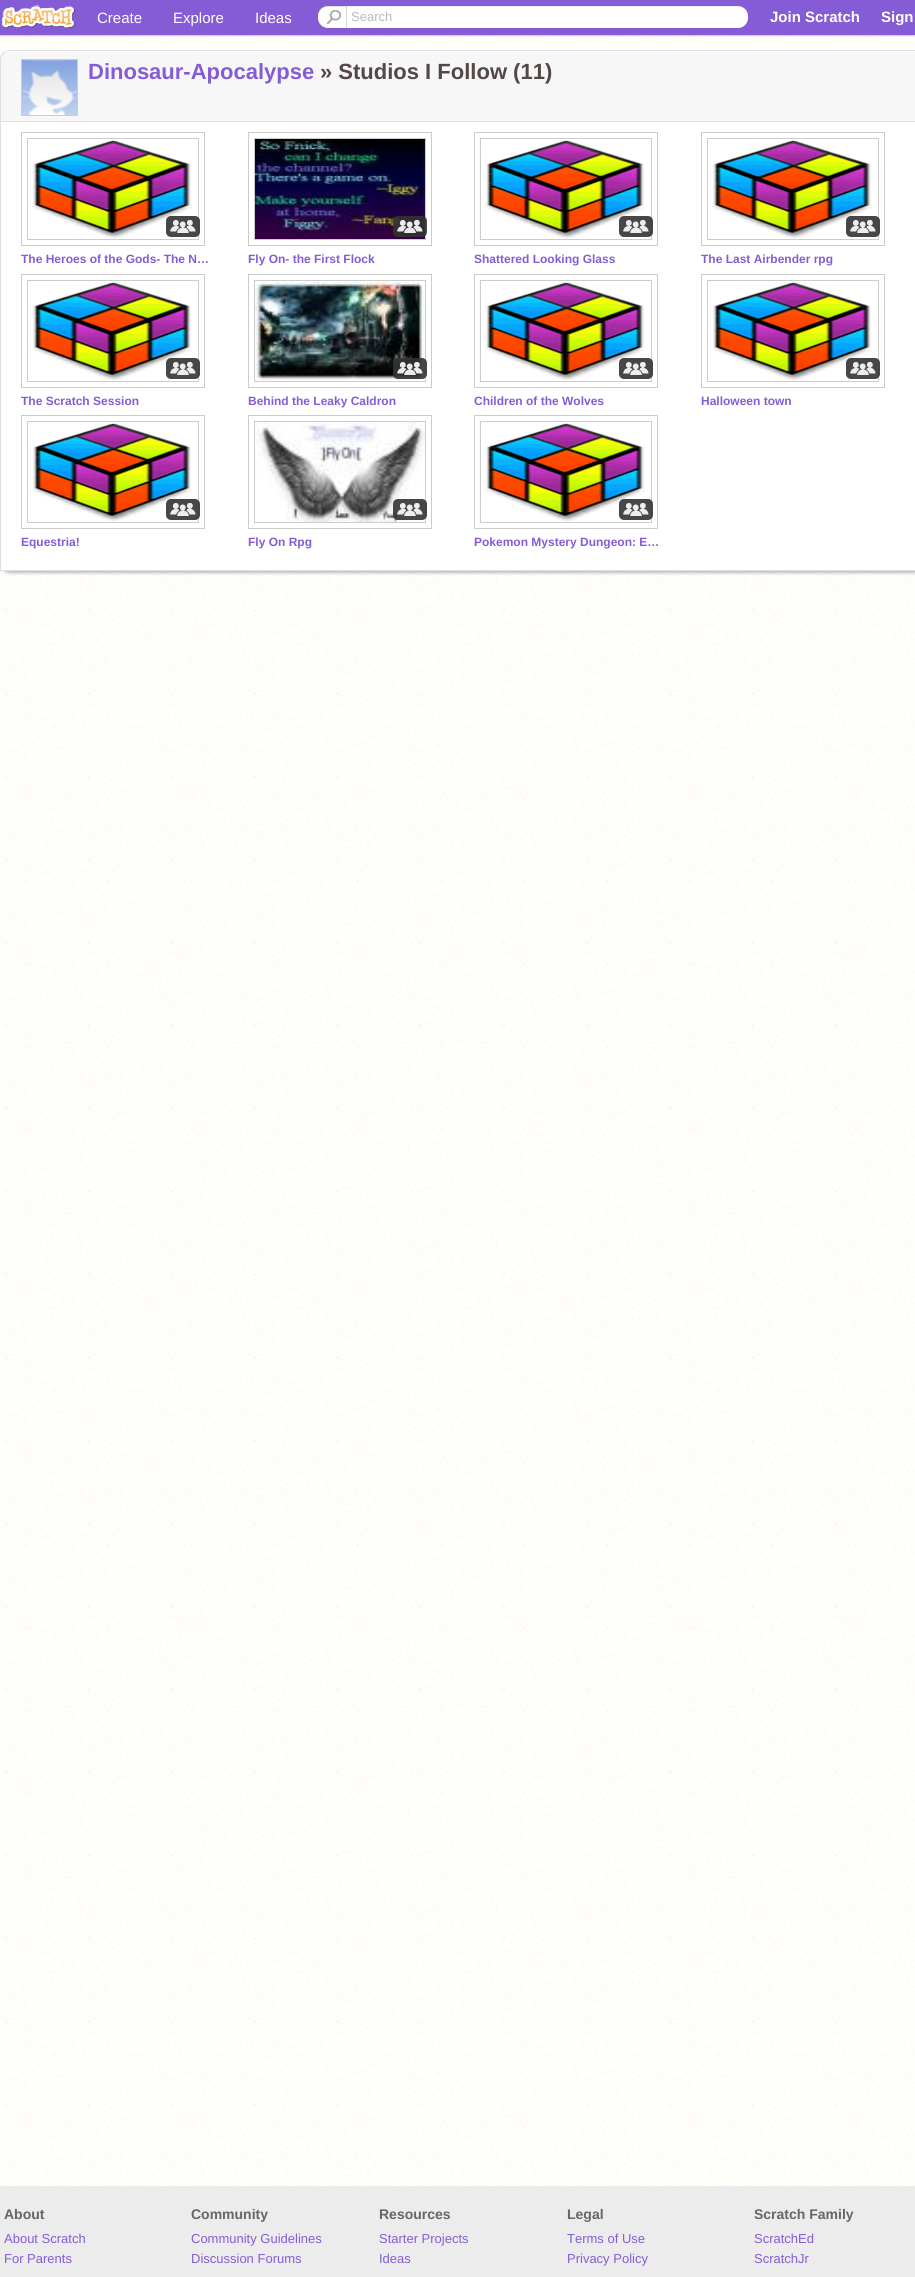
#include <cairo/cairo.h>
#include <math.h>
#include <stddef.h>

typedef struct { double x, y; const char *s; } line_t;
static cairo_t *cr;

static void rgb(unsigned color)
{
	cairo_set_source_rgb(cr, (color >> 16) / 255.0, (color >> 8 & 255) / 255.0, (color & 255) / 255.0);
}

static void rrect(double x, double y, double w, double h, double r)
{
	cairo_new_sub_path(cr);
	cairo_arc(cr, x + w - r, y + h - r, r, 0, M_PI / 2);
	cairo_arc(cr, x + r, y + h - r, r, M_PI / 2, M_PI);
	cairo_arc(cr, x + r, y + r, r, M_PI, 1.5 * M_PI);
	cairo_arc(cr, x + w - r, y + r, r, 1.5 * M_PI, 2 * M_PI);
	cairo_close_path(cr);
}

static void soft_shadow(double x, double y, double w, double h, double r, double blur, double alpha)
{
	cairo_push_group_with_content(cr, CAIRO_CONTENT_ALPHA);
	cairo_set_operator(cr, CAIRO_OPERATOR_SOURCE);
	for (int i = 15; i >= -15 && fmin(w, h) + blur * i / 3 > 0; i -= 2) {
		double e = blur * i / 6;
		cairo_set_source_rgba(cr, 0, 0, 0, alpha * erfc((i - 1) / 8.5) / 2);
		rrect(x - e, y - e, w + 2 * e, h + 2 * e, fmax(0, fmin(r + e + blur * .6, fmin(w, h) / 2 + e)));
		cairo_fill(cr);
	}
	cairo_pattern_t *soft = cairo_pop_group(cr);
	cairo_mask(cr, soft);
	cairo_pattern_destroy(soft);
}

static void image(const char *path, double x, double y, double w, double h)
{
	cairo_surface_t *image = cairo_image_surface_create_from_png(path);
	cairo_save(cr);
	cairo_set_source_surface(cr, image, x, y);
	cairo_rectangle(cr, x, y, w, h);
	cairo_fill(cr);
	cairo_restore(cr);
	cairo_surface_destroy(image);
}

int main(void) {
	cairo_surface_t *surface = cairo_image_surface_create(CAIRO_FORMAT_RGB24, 915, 2277);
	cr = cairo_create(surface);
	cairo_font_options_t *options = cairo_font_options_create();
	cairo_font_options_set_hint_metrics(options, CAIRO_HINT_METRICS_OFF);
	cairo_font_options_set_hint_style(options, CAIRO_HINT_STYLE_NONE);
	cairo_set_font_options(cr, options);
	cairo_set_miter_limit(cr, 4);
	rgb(0xffffff);
	cairo_paint(cr);
	image("img/1.png", 0, 35, 915, 2151);
	rgb(0xcccccc);
	soft_shadow(0, 1, 915, 35, 0, 0.5, 1);
	rgb(0x855cd6);
	cairo_rectangle(cr, 0, 0, 915, 35);
	cairo_fill(cr);
	image("img/2.png", 2, 5, 74, 25);
	rgb(0xffffff);
	rrect(318, 6, 430, 22, 10);
	cairo_fill(cr);
	cairo_set_source_rgba(cr, 0, 0, 0, 0.07);
	cairo_new_path(cr);
	cairo_move_to(cr, 328, 7);
	cairo_line_to(cr, 738, 7);
	cairo_curve_to(cr, 744, 7, 748, 11, 748, 17);
	cairo_line_to(cr, 748, 16);
	cairo_curve_to(cr, 748, 10, 744, 6, 738, 6);
	cairo_line_to(cr, 328, 6);
	cairo_curve_to(cr, 322, 6, 318, 10, 318, 16);
	cairo_line_to(cr, 318, 17);
	cairo_curve_to(cr, 318, 11, 322, 7, 328, 7);
	cairo_close_path(cr);
	cairo_fill(cr);
	image("img/3.png", 327, 10, 14, 14);
	cairo_set_source_rgba(cr, 0, 0, 0, 0.06);
	cairo_rectangle(cr, 318, 6, 28, 1);
	cairo_fill(cr);
	cairo_set_source_rgba(cr, 0.8, 0.8, 0.8, 0.8);
	cairo_rectangle(cr, 346, 6, 1, 22);
	cairo_fill(cr);
	rgb(0x221919);
	soft_shadow(0, 52, 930, 521, 10, 1.5, 0.3);
	rgb(0xf7f7f7);
	cairo_new_path(cr);
	cairo_move_to(cr, 10, 50.5);
	cairo_line_to(cr, 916, 50.5);
	cairo_curve_to(cr, 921, 50.5, 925.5, 55, 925.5, 60);
	cairo_line_to(cr, 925.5, 570.5);
	cairo_line_to(cr, 0.5, 570.5);
	cairo_line_to(cr, 0.5, 60);
	cairo_curve_to(cr, 0.5, 55, 5, 50.5, 10, 50.5);
	cairo_close_path(cr);
	cairo_fill_preserve(cr);
	rgb(0xe0e0e0);
	cairo_set_line_width(cr, 1);
	cairo_stroke(cr);
	rgb(0xffffff);
	cairo_rectangle(cr, 6, 51, 909, 1);
	cairo_fill(cr);
	cairo_rectangle(cr, 21.5, 59.5, 56, 56);
	rgb(0xcccccc);
	cairo_stroke(cr);
	image("img/4.png", 22, 60, 55, 55);
	rgb(0xffffff);
	cairo_rectangle(cr, 1, 122, 914, 448);
	cairo_fill(cr);
	rgb(0xe0e0e0);
	cairo_rectangle(cr, 1, 121, 914, 1);
	cairo_fill(cr);
	cairo_rectangle(cr, 21.5, 132.5, 183, 113);
	rgb(0xcccccc);
	cairo_stroke(cr);
	cairo_rectangle(cr, 27.5, 138.5, 171, 101);
	cairo_stroke(cr);
	image("img/5.png", 30, 140, 162, 99);
	cairo_set_source_rgba(cr, 0.2, 0.2, 0.2, 0.9);
	rrect(166, 216, 34, 21, 5);
	cairo_fill(cr);
	image("img/6.png", 170, 220, 26, 13);
	cairo_rectangle(cr, 248.5, 132.5, 183, 113);
	rgb(0xcccccc);
	cairo_stroke(cr);
	cairo_rectangle(cr, 254.5, 138.5, 171, 101);
	cairo_stroke(cr);
	image("img/7.png", 255, 139, 170, 100);
	cairo_set_source_rgba(cr, 0.2, 0.2, 0.2, 0.9);
	rrect(393, 216, 34, 21, 5);
	cairo_fill(cr);
	image("img/8.png", 397, 220, 26, 13);
	cairo_rectangle(cr, 474.5, 132.5, 183, 113);
	rgb(0xcccccc);
	cairo_stroke(cr);
	cairo_rectangle(cr, 480.5, 138.5, 171, 101);
	cairo_stroke(cr);
	image("img/5.png", 483, 140, 162, 99);
	cairo_set_source_rgba(cr, 0.2, 0.2, 0.2, 0.9);
	rrect(619, 216, 34, 21, 5);
	cairo_fill(cr);
	image("img/6.png", 623, 220, 26, 13);
	cairo_rectangle(cr, 701.5, 132.5, 183, 113);
	rgb(0xcccccc);
	cairo_stroke(cr);
	cairo_rectangle(cr, 707.5, 138.5, 171, 101);
	cairo_stroke(cr);
	image("img/5.png", 710, 140, 162, 99);
	cairo_set_source_rgba(cr, 0.2, 0.2, 0.2, 0.9);
	rrect(846, 216, 34, 21, 5);
	cairo_fill(cr);
	image("img/6.png", 850, 220, 26, 13);
	cairo_rectangle(cr, 21.5, 274.5, 183, 113);
	rgb(0xcccccc);
	cairo_stroke(cr);
	cairo_rectangle(cr, 27.5, 280.5, 171, 101);
	cairo_stroke(cr);
	image("img/5.png", 30, 282, 162, 99);
	cairo_set_source_rgba(cr, 0.2, 0.2, 0.2, 0.9);
	rrect(166, 358, 34, 21, 5);
	cairo_fill(cr);
	image("img/6.png", 170, 362, 26, 13);
	cairo_rectangle(cr, 248.5, 274.5, 183, 113);
	rgb(0xcccccc);
	cairo_stroke(cr);
	cairo_rectangle(cr, 254.5, 280.5, 171, 101);
	cairo_stroke(cr);
	image("img/9.png", 255, 281, 170, 100);
	cairo_set_source_rgba(cr, 0.2, 0.2, 0.2, 0.9);
	rrect(393, 358, 34, 21, 5);
	cairo_fill(cr);
	image("img/10.png", 397, 362, 26, 13);
	cairo_rectangle(cr, 474.5, 274.5, 183, 113);
	rgb(0xcccccc);
	cairo_stroke(cr);
	cairo_rectangle(cr, 480.5, 280.5, 171, 101);
	cairo_stroke(cr);
	image("img/5.png", 483, 282, 162, 99);
	cairo_set_source_rgba(cr, 0.2, 0.2, 0.2, 0.9);
	rrect(619, 358, 34, 21, 5);
	cairo_fill(cr);
	image("img/6.png", 623, 362, 26, 13);
	cairo_rectangle(cr, 701.5, 274.5, 183, 113);
	rgb(0xcccccc);
	cairo_stroke(cr);
	cairo_rectangle(cr, 707.5, 280.5, 171, 101);
	cairo_stroke(cr);
	image("img/5.png", 710, 282, 162, 99);
	cairo_set_source_rgba(cr, 0.2, 0.2, 0.2, 0.9);
	rrect(846, 358, 34, 21, 5);
	cairo_fill(cr);
	image("img/6.png", 850, 362, 26, 13);
	cairo_rectangle(cr, 21.5, 415.5, 183, 113);
	rgb(0xcccccc);
	cairo_stroke(cr);
	cairo_rectangle(cr, 27.5, 421.5, 171, 101);
	cairo_stroke(cr);
	image("img/5.png", 30, 423, 162, 99);
	cairo_set_source_rgba(cr, 0.2, 0.2, 0.2, 0.9);
	rrect(166, 499, 34, 21, 5);
	cairo_fill(cr);
	image("img/6.png", 170, 503, 26, 13);
	cairo_rectangle(cr, 248.5, 415.5, 183, 113);
	rgb(0xcccccc);
	cairo_stroke(cr);
	cairo_rectangle(cr, 254.5, 421.5, 171, 101);
	cairo_stroke(cr);
	image("img/11.png", 255, 422, 170, 100);
	cairo_set_source_rgba(cr, 0.2, 0.2, 0.2, 0.9);
	rrect(393, 499, 34, 21, 5);
	cairo_fill(cr);
	image("img/12.png", 397, 503, 26, 13);
	cairo_rectangle(cr, 474.5, 415.5, 183, 113);
	rgb(0xcccccc);
	cairo_stroke(cr);
	cairo_rectangle(cr, 480.5, 421.5, 171, 101);
	cairo_stroke(cr);
	image("img/5.png", 483, 423, 162, 99);
	cairo_set_source_rgba(cr, 0.2, 0.2, 0.2, 0.9);
	rrect(619, 499, 34, 21, 5);
	cairo_fill(cr);
	image("img/6.png", 623, 503, 26, 13);
	rgb(0xececec);
	cairo_rectangle(cr, 0, 2186, 915, 91);
	cairo_fill(cr);
	cairo_select_font_face(cr, "Liberation Sans", CAIRO_FONT_SLANT_NORMAL, CAIRO_FONT_WEIGHT_NORMAL);
	cairo_set_font_size(cr, 15);
	rgb(0xffffff);
	{
		static const line_t items[] = {
			{97, 23, "Create"},
			{173, 23, "Explore"},
			{255, 23, "Ideas"},
		};
		for (size_t i = 0; i < sizeof items / sizeof *items; i++) {
			cairo_move_to(cr, items[i].x, items[i].y);
			cairo_show_text(cr, items[i].s);
		}
	}
	cairo_set_font_size(cr, 13);
	rgb(0xbbbbbb);
	cairo_move_to(cr, 351, 21);
	cairo_show_text(cr, "Search");
	cairo_select_font_face(cr, "Liberation Sans", CAIRO_FONT_SLANT_NORMAL, CAIRO_FONT_WEIGHT_BOLD);
	cairo_set_font_size(cr, 15);
	rgb(0xffffff);
	cairo_move_to(cr, 770, 22);
	cairo_show_text(cr, "Join Scratch");
	cairo_move_to(cr, 881, 22);
	cairo_show_text(cr, "Sign");
	cairo_set_font_size(cr, 22);
	rgb(0x855cd6);
	cairo_move_to(cr, 88, 79);
	cairo_show_text(cr, "Dinosaur-Apocalypse");
	rgb(0x554747);
	cairo_move_to(cr, 320, 79);
	cairo_show_text(cr, "» Studios I Follow (11)");
	cairo_set_font_size(cr, 12);
	rgb(0x855cd6);
	{
		static const line_t items[] = {
			{21, 263, "The Heroes of the Gods- The N…"},
			{248, 263, "Fly On- the First Flock"},
			{474, 263, "Shattered Looking Glass"},
			{701, 263, "The Last Airbender rpg"},
			{21, 405, "The Scratch Session"},
			{248, 405, "Behind the Leaky Caldron"},
			{474, 405, "Children of the Wolves"},
			{701, 405, "Halloween town"},
			{21, 546, "Equestria!"},
			{248, 546, "Fly On Rpg"},
			{474, 546, "Pokemon Mystery Dungeon: E…"},
		};
		for (size_t i = 0; i < sizeof items / sizeof *items; i++) {
			cairo_move_to(cr, items[i].x, items[i].y);
			cairo_show_text(cr, items[i].s);
		}
	}
	cairo_set_font_size(cr, 14);
	rgb(0x666666);
	cairo_move_to(cr, 4, 2219);
	cairo_show_text(cr, "About");
	cairo_select_font_face(cr, "Liberation Sans", CAIRO_FONT_SLANT_NORMAL, CAIRO_FONT_WEIGHT_NORMAL);
	cairo_set_font_size(cr, 13);
	rgb(0x855cd6);
	cairo_move_to(cr, 4, 2243);
	cairo_show_text(cr, "About Scratch");
	cairo_move_to(cr, 4, 2263);
	cairo_show_text(cr, "For Parents");
	cairo_select_font_face(cr, "Liberation Sans", CAIRO_FONT_SLANT_NORMAL, CAIRO_FONT_WEIGHT_BOLD);
	cairo_set_font_size(cr, 14);
	rgb(0x666666);
	cairo_move_to(cr, 191, 2219);
	cairo_show_text(cr, "Community");
	cairo_select_font_face(cr, "Liberation Sans", CAIRO_FONT_SLANT_NORMAL, CAIRO_FONT_WEIGHT_NORMAL);
	cairo_set_font_size(cr, 13);
	rgb(0x855cd6);
	cairo_move_to(cr, 191, 2243);
	cairo_show_text(cr, "Community Guidelines");
	cairo_move_to(cr, 191, 2263);
	cairo_show_text(cr, "Discussion Forums");
	cairo_select_font_face(cr, "Liberation Sans", CAIRO_FONT_SLANT_NORMAL, CAIRO_FONT_WEIGHT_BOLD);
	cairo_set_font_size(cr, 14);
	rgb(0x666666);
	cairo_move_to(cr, 379, 2219);
	cairo_show_text(cr, "Resources");
	cairo_select_font_face(cr, "Liberation Sans", CAIRO_FONT_SLANT_NORMAL, CAIRO_FONT_WEIGHT_NORMAL);
	cairo_set_font_size(cr, 13);
	rgb(0x855cd6);
	cairo_move_to(cr, 379, 2243);
	cairo_show_text(cr, "Starter Projects");
	cairo_move_to(cr, 379, 2263);
	cairo_show_text(cr, "Ideas");
	cairo_select_font_face(cr, "Liberation Sans", CAIRO_FONT_SLANT_NORMAL, CAIRO_FONT_WEIGHT_BOLD);
	cairo_set_font_size(cr, 14);
	rgb(0x666666);
	cairo_move_to(cr, 567, 2219);
	cairo_show_text(cr, "Legal");
	cairo_select_font_face(cr, "Liberation Sans", CAIRO_FONT_SLANT_NORMAL, CAIRO_FONT_WEIGHT_NORMAL);
	cairo_set_font_size(cr, 13);
	rgb(0x855cd6);
	cairo_move_to(cr, 567, 2243);
	cairo_show_text(cr, "Terms of Use");
	cairo_move_to(cr, 567, 2263);
	cairo_show_text(cr, "Privacy Policy");
	cairo_select_font_face(cr, "Liberation Sans", CAIRO_FONT_SLANT_NORMAL, CAIRO_FONT_WEIGHT_BOLD);
	cairo_set_font_size(cr, 14);
	rgb(0x666666);
	cairo_move_to(cr, 754, 2219);
	cairo_show_text(cr, "Scratch Family");
	cairo_select_font_face(cr, "Liberation Sans", CAIRO_FONT_SLANT_NORMAL, CAIRO_FONT_WEIGHT_NORMAL);
	cairo_set_font_size(cr, 13);
	rgb(0x855cd6);
	cairo_move_to(cr, 754, 2243);
	cairo_show_text(cr, "ScratchEd");
	cairo_move_to(cr, 754, 2263);
	cairo_show_text(cr, "ScratchJr");
	cairo_surface_write_to_png(surface, "page.png");
	cairo_font_options_destroy(options);
	cairo_destroy(cr);
	cairo_surface_destroy(surface);
	return 0;
}
